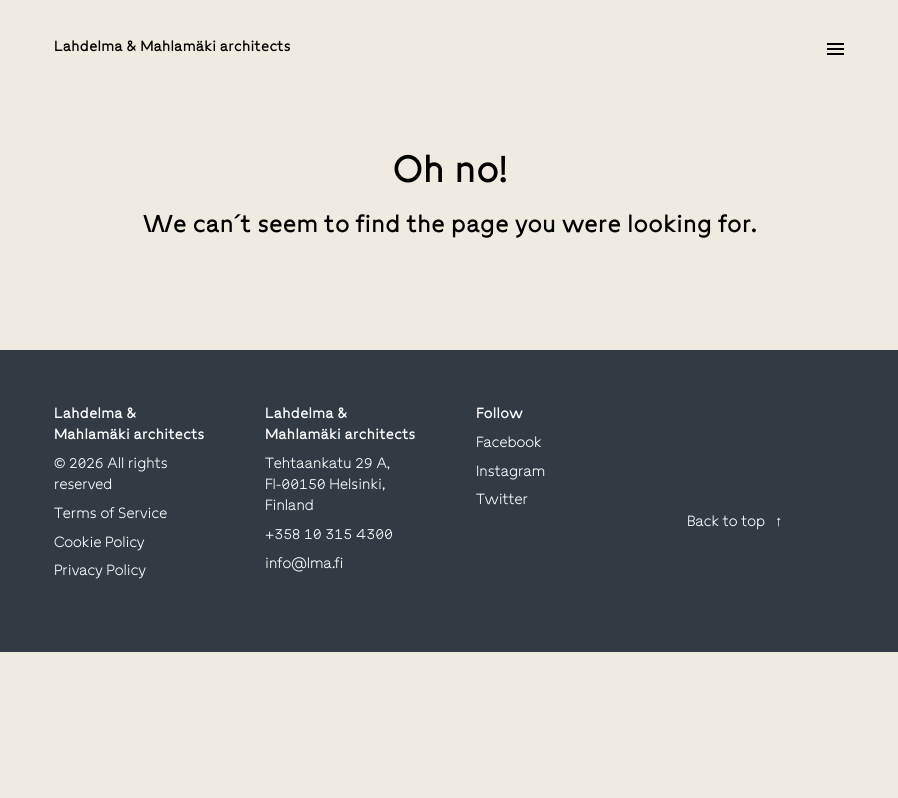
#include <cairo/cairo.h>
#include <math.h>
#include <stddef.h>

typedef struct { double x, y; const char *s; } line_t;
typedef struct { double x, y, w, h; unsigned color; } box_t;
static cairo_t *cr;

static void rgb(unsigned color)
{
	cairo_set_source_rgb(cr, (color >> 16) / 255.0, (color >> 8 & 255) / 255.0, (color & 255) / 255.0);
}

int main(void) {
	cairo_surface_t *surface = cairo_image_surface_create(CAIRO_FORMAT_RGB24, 898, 798);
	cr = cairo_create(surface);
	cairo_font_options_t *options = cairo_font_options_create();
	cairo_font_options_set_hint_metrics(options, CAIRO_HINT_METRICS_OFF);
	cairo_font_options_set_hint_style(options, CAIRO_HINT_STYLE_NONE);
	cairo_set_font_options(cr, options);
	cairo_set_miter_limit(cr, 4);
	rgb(0xf0ebe0);
	cairo_paint(cr);
	{
		static const box_t items[] = {
			{827, 43, 17, 2, 0x000000},
			{827, 48, 17, 2, 0x000000},
			{827, 53, 17, 2, 0x000000},
			{0, 350, 898, 302, 0x323b44},
		};
		for (size_t i = 0; i < sizeof items / sizeof *items; i++) {
			rgb(items[i].color);
			cairo_rectangle(cr, items[i].x, items[i].y, items[i].w, items[i].h);
			cairo_fill(cr);
		}
	}
	cairo_select_font_face(cr, "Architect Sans", CAIRO_FONT_SLANT_NORMAL, CAIRO_FONT_WEIGHT_BOLD);
	cairo_set_font_size(cr, 14.75);
	rgb(0x000000);
	cairo_move_to(cr, 54, 51);
	cairo_show_text(cr, "Lahdelma & Mahlamäki architects");
	cairo_select_font_face(cr, "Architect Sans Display", CAIRO_FONT_SLANT_NORMAL, CAIRO_FONT_WEIGHT_BOLD);
	cairo_set_font_size(cr, 38);
	cairo_move_to(cr, 393, 182);
	cairo_show_text(cr, "Oh no!");
	cairo_set_font_size(cr, 24.25);
	cairo_move_to(cr, 143, 232);
	cairo_show_text(cr, "We can´t seem to find the page you were looking for.");
	cairo_select_font_face(cr, "Architect Sans", CAIRO_FONT_SLANT_NORMAL, CAIRO_FONT_WEIGHT_BOLD);
	cairo_set_font_size(cr, 14.75);
	rgb(0xffffff);
	cairo_move_to(cr, 54, 418);
	cairo_show_text(cr, "Lahdelma &");
	cairo_move_to(cr, 54, 439);
	cairo_show_text(cr, "Mahlamäki architects");
	cairo_select_font_face(cr, "Architect Sans", CAIRO_FONT_SLANT_NORMAL, CAIRO_FONT_WEIGHT_NORMAL);
	{
		static const line_t items[] = {
			{54, 468, "© 2026 All rights"},
			{54, 489, "reserved"},
			{54, 518, "Terms of Service"},
			{54, 547, "Cookie Policy"},
			{54, 575, "Privacy Policy"},
		};
		for (size_t i = 0; i < sizeof items / sizeof *items; i++) {
			cairo_move_to(cr, items[i].x, items[i].y);
			cairo_show_text(cr, items[i].s);
		}
	}
	cairo_select_font_face(cr, "Architect Sans", CAIRO_FONT_SLANT_NORMAL, CAIRO_FONT_WEIGHT_BOLD);
	cairo_move_to(cr, 265, 418);
	cairo_show_text(cr, "Lahdelma &");
	cairo_move_to(cr, 265, 439);
	cairo_show_text(cr, "Mahlamäki architects");
	cairo_select_font_face(cr, "Architect Sans", CAIRO_FONT_SLANT_NORMAL, CAIRO_FONT_WEIGHT_NORMAL);
	{
		static const line_t items[] = {
			{265, 468, "Tehtaankatu 29 A,"},
			{265, 489, "FI-00150 Helsinki,"},
			{265, 510, "Finland"},
			{265, 539, "+358 10 315 4300"},
			{265, 568, "info@lma.fi"},
		};
		for (size_t i = 0; i < sizeof items / sizeof *items; i++) {
			cairo_move_to(cr, items[i].x, items[i].y);
			cairo_show_text(cr, items[i].s);
		}
	}
	cairo_select_font_face(cr, "Architect Sans", CAIRO_FONT_SLANT_NORMAL, CAIRO_FONT_WEIGHT_BOLD);
	cairo_move_to(cr, 476, 418);
	cairo_show_text(cr, "Follow");
	cairo_select_font_face(cr, "Architect Sans", CAIRO_FONT_SLANT_NORMAL, CAIRO_FONT_WEIGHT_NORMAL);
	{
		static const line_t items[] = {
			{476, 447, "Facebook"},
			{476, 476, "Instagram"},
			{476, 504, "Twitter"},
			{687, 526, "Back to top"},
		};
		for (size_t i = 0; i < sizeof items / sizeof *items; i++) {
			cairo_move_to(cr, items[i].x, items[i].y);
			cairo_show_text(cr, items[i].s);
		}
	}
	cairo_select_font_face(cr, "Liberation Sans", CAIRO_FONT_SLANT_NORMAL, CAIRO_FONT_WEIGHT_NORMAL);
	cairo_move_to(cr, 775, 526);
	cairo_show_text(cr, "↑");
	cairo_surface_write_to_png(surface, "page.png");
	cairo_font_options_destroy(options);
	cairo_destroy(cr);
	cairo_surface_destroy(surface);
	return 0;
}
